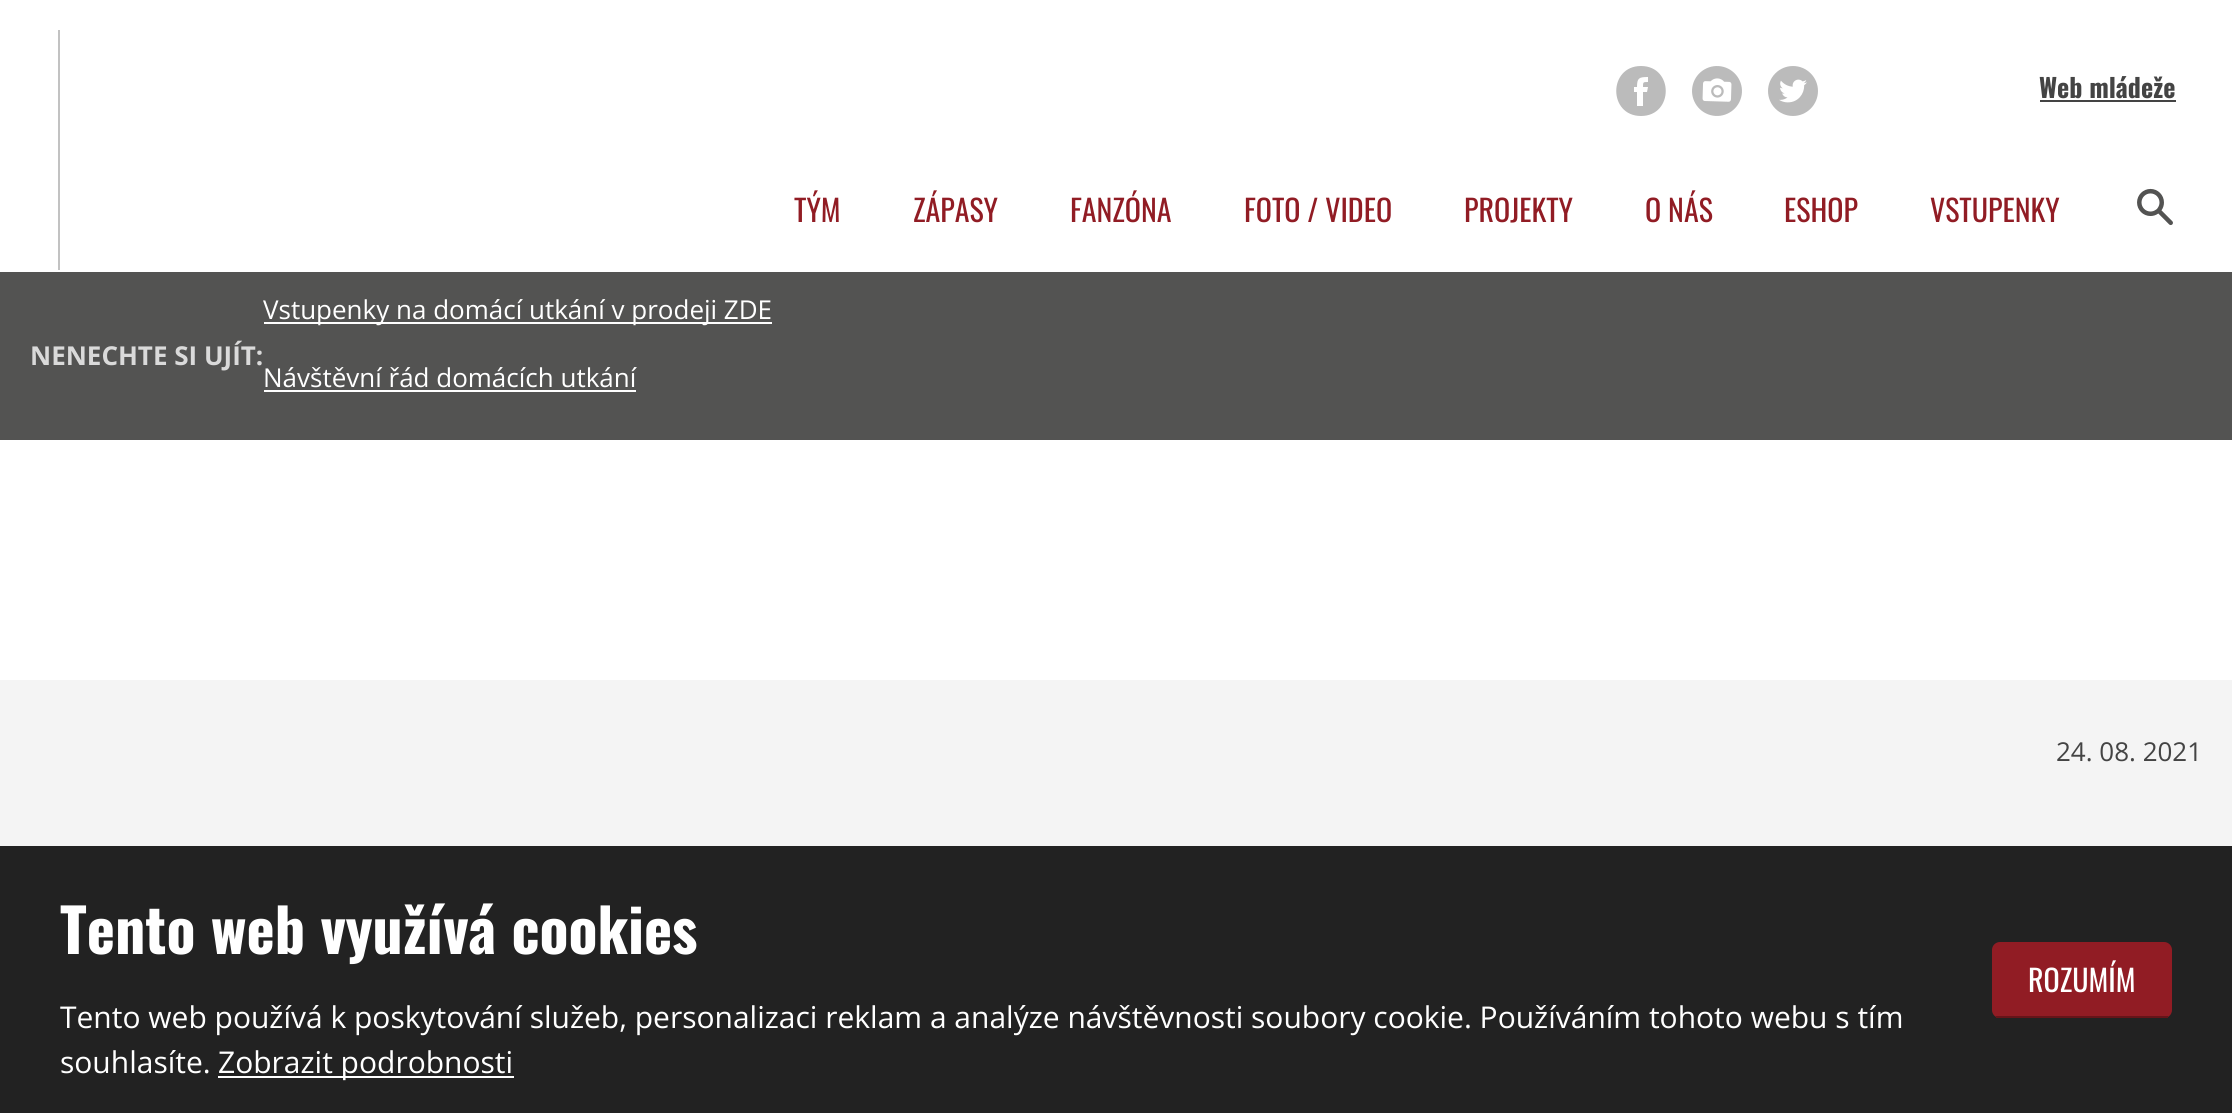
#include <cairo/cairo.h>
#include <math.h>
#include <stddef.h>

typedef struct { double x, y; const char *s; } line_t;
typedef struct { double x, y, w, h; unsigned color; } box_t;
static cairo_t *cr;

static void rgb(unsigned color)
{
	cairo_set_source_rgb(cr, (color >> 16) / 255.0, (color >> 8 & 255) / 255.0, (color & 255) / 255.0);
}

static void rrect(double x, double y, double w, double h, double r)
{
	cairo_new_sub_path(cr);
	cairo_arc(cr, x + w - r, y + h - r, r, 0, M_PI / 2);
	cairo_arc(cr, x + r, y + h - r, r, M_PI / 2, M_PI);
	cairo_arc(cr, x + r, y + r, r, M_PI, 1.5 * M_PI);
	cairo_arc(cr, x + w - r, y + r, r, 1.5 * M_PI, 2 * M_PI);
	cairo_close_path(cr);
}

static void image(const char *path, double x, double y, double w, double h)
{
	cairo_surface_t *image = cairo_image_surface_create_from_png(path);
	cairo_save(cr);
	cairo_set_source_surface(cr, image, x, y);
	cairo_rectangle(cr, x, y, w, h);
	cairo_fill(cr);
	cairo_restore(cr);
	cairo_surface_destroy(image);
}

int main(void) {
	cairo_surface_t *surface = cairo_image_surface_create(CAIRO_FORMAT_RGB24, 2232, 1113);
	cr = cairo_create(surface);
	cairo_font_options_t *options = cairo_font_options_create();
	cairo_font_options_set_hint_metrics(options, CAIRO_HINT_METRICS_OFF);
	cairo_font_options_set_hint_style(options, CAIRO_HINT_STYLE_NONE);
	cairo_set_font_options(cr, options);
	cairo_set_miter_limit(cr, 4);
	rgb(0xf4f4f4);
	cairo_paint(cr);
	rgb(0xffffff);
	cairo_rectangle(cr, 0, 0, 2232, 680);
	cairo_fill(cr);
	rgb(0xc2c2c2);
	cairo_rectangle(cr, 58, 30, 2, 240);
	cairo_fill(cr);
	rgb(0xbbbbbb);
	cairo_new_path(cr);
	cairo_move_to(cr, 1641, 66);
	cairo_curve_to(cr, 1608, 66, 1608, 116, 1641, 116);
	cairo_curve_to(cr, 1674, 116, 1674, 66, 1641, 66);
	cairo_close_path(cr);
	cairo_move_to(cr, 1647, 92);
	cairo_line_to(cr, 1643, 92);
	cairo_line_to(cr, 1643, 106);
	cairo_line_to(cr, 1637, 106);
	cairo_line_to(cr, 1637, 92);
	cairo_line_to(cr, 1634, 92);
	cairo_line_to(cr, 1634, 87);
	cairo_line_to(cr, 1637, 87);
	cairo_curve_to(cr, 1637, 78, 1639, 77, 1648, 77);
	cairo_line_to(cr, 1648, 82);
	cairo_curve_to(cr, 1643, 82, 1643, 82, 1643, 87);
	cairo_line_to(cr, 1648, 87);
	cairo_close_path(cr);
	cairo_fill(cr);
	image("img/1.png", 1692, 66, 50, 50);
	image("img/2.png", 1768, 66, 50, 50);
	rgb(0x444444);
	cairo_rectangle(cr, 2040, 100, 136, 2);
	cairo_fill(cr);
	image("img/3.png", 2137, 188, 36, 38);
	{
		static const box_t items[] = {
			{0, 272, 2232, 168, 0x535352},
			{264, 322, 508, 2, 0xffffff},
			{264, 390, 372, 2, 0xffffff},
			{0, 846, 2232, 267, 0x222222},
			{218, 1076, 296, 2, 0xffffff},
		};
		for (size_t i = 0; i < sizeof items / sizeof *items; i++) {
			rgb(items[i].color);
			cairo_rectangle(cr, items[i].x, items[i].y, items[i].w, items[i].h);
			cairo_fill(cr);
		}
	}
	rgb(0x911c24);
	rrect(1992, 942, 180, 76, 8);
	cairo_fill(cr);
	rgb(0x661419);
	cairo_rectangle(cr, 1996, 1016, 172, 2);
	cairo_fill(cr);
	cairo_select_font_face(cr, "Oswald", CAIRO_FONT_SLANT_NORMAL, CAIRO_FONT_WEIGHT_BOLD);
	cairo_set_font_size(cr, 26);
	rgb(0x444444);
	cairo_move_to(cr, 2039, 98);
	cairo_show_text(cr, "Web mládeže");
	cairo_select_font_face(cr, "Oswald", CAIRO_FONT_SLANT_NORMAL, CAIRO_FONT_WEIGHT_NORMAL);
	cairo_set_font_size(cr, 30);
	rgb(0x911c24);
	{
		static const line_t items[] = {
			{794, 222, "TÝM"},
			{913, 222, "ZÁPASY"},
			{1070, 222, "FANZÓNA"},
			{1244, 222, "FOTO / VIDEO"},
			{1464, 222, "PROJEKTY"},
			{1645, 222, "O NÁS"},
			{1784, 222, "ESHOP"},
			{1930, 222, "VSTUPENKY"},
		};
		for (size_t i = 0; i < sizeof items / sizeof *items; i++) {
			cairo_move_to(cr, items[i].x, items[i].y);
			cairo_show_text(cr, items[i].s);
		}
	}
	cairo_select_font_face(cr, "Open Sans", CAIRO_FONT_SLANT_NORMAL, CAIRO_FONT_WEIGHT_BOLD);
	cairo_set_font_size(cr, 26);
	rgb(0xdadada);
	cairo_move_to(cr, 30, 365);
	cairo_show_text(cr, "NENECHTE SI UJÍT:");
	cairo_select_font_face(cr, "Open Sans", CAIRO_FONT_SLANT_NORMAL, CAIRO_FONT_WEIGHT_NORMAL);
	rgb(0xffffff);
	cairo_move_to(cr, 263, 319);
	cairo_show_text(cr, "Vstupenky na domácí utkání v prodeji ZDE");
	cairo_move_to(cr, 263, 387);
	cairo_show_text(cr, "Návštěvní řád domácích utkání");
	rgb(0x444444);
	cairo_move_to(cr, 2056, 761);
	cairo_show_text(cr, "24. 08. 2021");
	cairo_select_font_face(cr, "Oswald", CAIRO_FONT_SLANT_NORMAL, CAIRO_FONT_WEIGHT_BOLD);
	cairo_set_font_size(cr, 60);
	rgb(0xffffff);
	cairo_move_to(cr, 60, 954);
	cairo_show_text(cr, "Tento web využívá cookies");
	cairo_select_font_face(cr, "Open Sans", CAIRO_FONT_SLANT_NORMAL, CAIRO_FONT_WEIGHT_NORMAL);
	cairo_set_font_size(cr, 30);
	{
		static const line_t items[] = {
			{60, 1028, "Tento web používá k poskytování služeb, personalizaci reklam a analýze návštěvnosti soubory cookie. Používáním tohoto webu s tím"},
			{60, 1073, "souhlasíte."},
			{218, 1073, "Zobrazit podrobnosti"},
		};
		for (size_t i = 0; i < sizeof items / sizeof *items; i++) {
			cairo_move_to(cr, items[i].x, items[i].y);
			cairo_show_text(cr, items[i].s);
		}
	}
	cairo_select_font_face(cr, "Oswald", CAIRO_FONT_SLANT_NORMAL, CAIRO_FONT_WEIGHT_NORMAL);
	cairo_move_to(cr, 2028, 992);
	cairo_show_text(cr, "ROZUMÍM");
	cairo_surface_write_to_png(surface, "page.png");
	cairo_font_options_destroy(options);
	cairo_destroy(cr);
	cairo_surface_destroy(surface);
	return 0;
}
